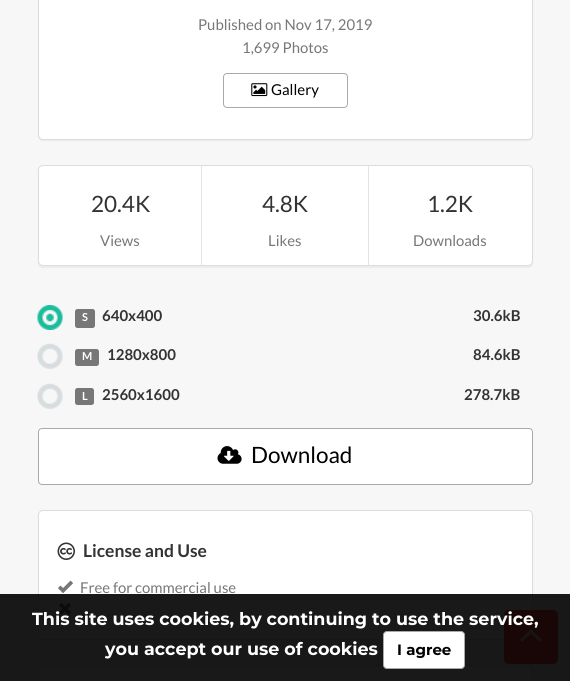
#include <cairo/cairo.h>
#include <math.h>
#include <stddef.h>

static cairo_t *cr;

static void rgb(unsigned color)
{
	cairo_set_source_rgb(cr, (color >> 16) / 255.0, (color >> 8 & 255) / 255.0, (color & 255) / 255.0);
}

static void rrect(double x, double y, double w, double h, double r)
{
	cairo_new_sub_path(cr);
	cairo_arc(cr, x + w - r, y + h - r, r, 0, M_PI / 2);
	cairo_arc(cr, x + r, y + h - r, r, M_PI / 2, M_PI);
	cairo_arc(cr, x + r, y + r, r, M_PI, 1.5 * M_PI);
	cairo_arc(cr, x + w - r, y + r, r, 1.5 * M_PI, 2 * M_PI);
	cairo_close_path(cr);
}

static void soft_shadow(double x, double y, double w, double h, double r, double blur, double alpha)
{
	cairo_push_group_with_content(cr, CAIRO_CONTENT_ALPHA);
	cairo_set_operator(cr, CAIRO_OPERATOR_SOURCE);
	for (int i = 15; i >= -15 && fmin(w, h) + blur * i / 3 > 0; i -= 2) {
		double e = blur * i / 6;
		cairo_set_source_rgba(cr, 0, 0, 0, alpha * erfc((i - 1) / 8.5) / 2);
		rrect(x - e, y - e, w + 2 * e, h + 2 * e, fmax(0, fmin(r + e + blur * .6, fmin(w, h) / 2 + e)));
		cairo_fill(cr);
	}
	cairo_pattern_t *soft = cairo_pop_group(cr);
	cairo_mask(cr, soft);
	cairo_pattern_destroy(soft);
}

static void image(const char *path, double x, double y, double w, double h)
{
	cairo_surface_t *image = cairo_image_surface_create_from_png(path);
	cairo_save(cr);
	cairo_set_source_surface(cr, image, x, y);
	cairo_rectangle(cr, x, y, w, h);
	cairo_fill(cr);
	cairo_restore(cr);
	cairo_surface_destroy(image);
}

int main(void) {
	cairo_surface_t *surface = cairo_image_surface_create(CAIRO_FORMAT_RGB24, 570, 681);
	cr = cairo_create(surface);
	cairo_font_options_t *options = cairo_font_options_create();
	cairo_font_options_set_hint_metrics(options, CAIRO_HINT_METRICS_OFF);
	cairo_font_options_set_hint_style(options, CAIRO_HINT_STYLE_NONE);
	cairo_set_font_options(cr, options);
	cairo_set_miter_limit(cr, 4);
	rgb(0xf7f7f7);
	cairo_paint(cr);
	rgb(0x000000);
	soft_shadow(38, -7, 495, 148, 5, 0.5, 0.05);
	rgb(0xffffff);
	rrect(38.5, -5.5, 494, 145, 4.5);
	cairo_fill_preserve(cr);
	rgb(0xdddddd);
	cairo_set_line_width(cr, 1);
	cairo_stroke(cr);
	rrect(223.5, 73.5, 124, 34, 3.5);
	rgb(0xa9a9a9);
	cairo_stroke(cr);
	image("img/1.png", 251, 83, 17, 14);
	rgb(0x000000);
	soft_shadow(38, 166, 495, 102, 5, 0.5, 0.05);
	rgb(0xffffff);
	rrect(38.5, 165.5, 494, 100, 4.5);
	cairo_fill_preserve(cr);
	rgb(0xdddddd);
	cairo_stroke(cr);
	rgb(0xe3e3e3);
	cairo_rectangle(cr, 201, 166, 1, 99);
	cairo_fill(cr);
	cairo_rectangle(cr, 368, 166, 1, 99);
	cairo_fill(cr);
	image("img/2.png", 37, 305, 26, 25);
	rgb(0x777777);
	rrect(75, 309, 20, 19, 2.5);
	cairo_fill(cr);
	image("img/3.png", 37, 343, 26, 26);
	rrect(75, 349, 24, 17, 2.5);
	cairo_fill(cr);
	image("img/3.png", 37, 383, 26, 26);
	rrect(75, 388, 19, 17, 2.5);
	cairo_fill(cr);
	rgb(0xffffff);
	rrect(38.5, 428.5, 494, 56, 3.5);
	cairo_fill_preserve(cr);
	rgb(0xa9a9a9);
	cairo_stroke(cr);
	image("img/4.png", 217, 446, 25, 18);
	rgb(0x000000);
	soft_shadow(38, 511, 495, 130, 5, 0.5, 0.05);
	rgb(0xffffff);
	rrect(38.5, 510.5, 494, 129, 4.5);
	cairo_fill_preserve(cr);
	rgb(0xdddddd);
	cairo_stroke(cr);
	image("img/5.png", 57, 542, 18, 18);
	image("img/6.png", 58, 580, 15, 14);
	image("img/7.png", 58, 602, 13, 13);
	rgb(0xffffff);
	rrect(38.5, 665.5, 494, 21, 4.5);
	cairo_fill_preserve(cr);
	rgb(0xdddddd);
	cairo_stroke(cr);
	cairo_set_source_rgba(cr, 1, 0, 0, 0.7);
	rrect(504, 610, 54, 54, 5);
	cairo_fill(cr);
	image("img/8.png", 520, 629, 22, 13);
	cairo_set_source_rgba(cr, 0, 0, 0, 0.9);
	cairo_rectangle(cr, 0, 594, 570, 87);
	cairo_fill(cr);
	rgb(0xffffff);
	rrect(383.5, 631.5, 81, 37, 3.5);
	cairo_fill_preserve(cr);
	rgb(0xa9a9a9);
	cairo_stroke(cr);
	cairo_select_font_face(cr, "Lato", CAIRO_FONT_SLANT_NORMAL, CAIRO_FONT_WEIGHT_NORMAL);
	cairo_set_font_size(cr, 14.9);
	rgb(0x777777);
	cairo_move_to(cr, 198, 30);
	cairo_show_text(cr, "Published on Nov 17, 2019");
	cairo_move_to(cr, 242, 53);
	cairo_show_text(cr, "1,699 Photos");
	cairo_set_font_size(cr, 15);
	rgb(0x000000);
	cairo_move_to(cr, 271, 95);
	cairo_show_text(cr, "Gallery");
	cairo_set_font_size(cr, 22.5);
	rgb(0x333333);
	cairo_move_to(cr, 91, 212);
	cairo_show_text(cr, "20.4K");
	cairo_set_font_size(cr, 14.9);
	rgb(0x777777);
	cairo_move_to(cr, 100, 246);
	cairo_show_text(cr, "Views");
	cairo_set_font_size(cr, 22.5);
	rgb(0x333333);
	cairo_move_to(cr, 262, 212);
	cairo_show_text(cr, "4.8K");
	cairo_set_font_size(cr, 14.9);
	rgb(0x777777);
	cairo_move_to(cr, 268, 246);
	cairo_show_text(cr, "Likes");
	cairo_set_font_size(cr, 22.5);
	rgb(0x333333);
	cairo_move_to(cr, 427, 212);
	cairo_show_text(cr, "1.2K");
	cairo_set_font_size(cr, 14.9);
	rgb(0x777777);
	cairo_move_to(cr, 413, 246);
	cairo_show_text(cr, "Downloads");
	cairo_select_font_face(cr, "Lato", CAIRO_FONT_SLANT_NORMAL, CAIRO_FONT_WEIGHT_BOLD);
	cairo_set_font_size(cr, 11);
	rgb(0xffffff);
	cairo_move_to(cr, 82, 321);
	cairo_show_text(cr, "S");
	cairo_set_font_size(cr, 15);
	rgb(0x333333);
	cairo_move_to(cr, 102, 321);
	cairo_show_text(cr, "640x400");
	cairo_move_to(cr, 473, 321);
	cairo_show_text(cr, "30.6kB");
	cairo_set_font_size(cr, 11);
	rgb(0xffffff);
	cairo_move_to(cr, 82, 360);
	cairo_show_text(cr, "M");
	cairo_set_font_size(cr, 15);
	rgb(0x333333);
	cairo_move_to(cr, 107, 360);
	cairo_show_text(cr, "1280x800");
	cairo_move_to(cr, 473, 360);
	cairo_show_text(cr, "84.6kB");
	cairo_set_font_size(cr, 11);
	rgb(0xffffff);
	cairo_move_to(cr, 82, 400);
	cairo_show_text(cr, "L");
	cairo_set_font_size(cr, 15);
	rgb(0x333333);
	cairo_move_to(cr, 102, 400);
	cairo_show_text(cr, "2560x1600");
	cairo_move_to(cr, 464, 400);
	cairo_show_text(cr, "278.7kB");
	cairo_select_font_face(cr, "Lato", CAIRO_FONT_SLANT_NORMAL, CAIRO_FONT_WEIGHT_NORMAL);
	cairo_set_font_size(cr, 22.5);
	rgb(0x000000);
	cairo_move_to(cr, 251, 463);
	cairo_show_text(cr, "Download");
	cairo_select_font_face(cr, "Lato", CAIRO_FONT_SLANT_NORMAL, CAIRO_FONT_WEIGHT_BOLD);
	cairo_set_font_size(cr, 17.5);
	rgb(0x333333);
	cairo_move_to(cr, 83, 557);
	cairo_show_text(cr, "License and Use");
	cairo_select_font_face(cr, "Lato", CAIRO_FONT_SLANT_NORMAL, CAIRO_FONT_WEIGHT_NORMAL);
	cairo_set_font_size(cr, 14.9);
	rgb(0x777777);
	cairo_move_to(cr, 80, 593);
	cairo_show_text(cr, "Free for commercial use");
	cairo_select_font_face(cr, "Montserrat Thin", CAIRO_FONT_SLANT_NORMAL, CAIRO_FONT_WEIGHT_NORMAL);
	cairo_set_font_size(cr, 17.5);
	rgb(0xffffff);
	cairo_move_to(cr, 32, 625);
	cairo_show_text(cr, "This site uses cookies, by continuing to use the service,");
	cairo_move_to(cr, 105, 655);
	cairo_show_text(cr, "you accept our use of cookies");
	cairo_set_font_size(cr, 15);
	rgb(0x000000);
	cairo_move_to(cr, 397, 655);
	cairo_show_text(cr, "I agree");
	cairo_surface_write_to_png(surface, "page.png");
	cairo_font_options_destroy(options);
	cairo_destroy(cr);
	cairo_surface_destroy(surface);
	return 0;
}
